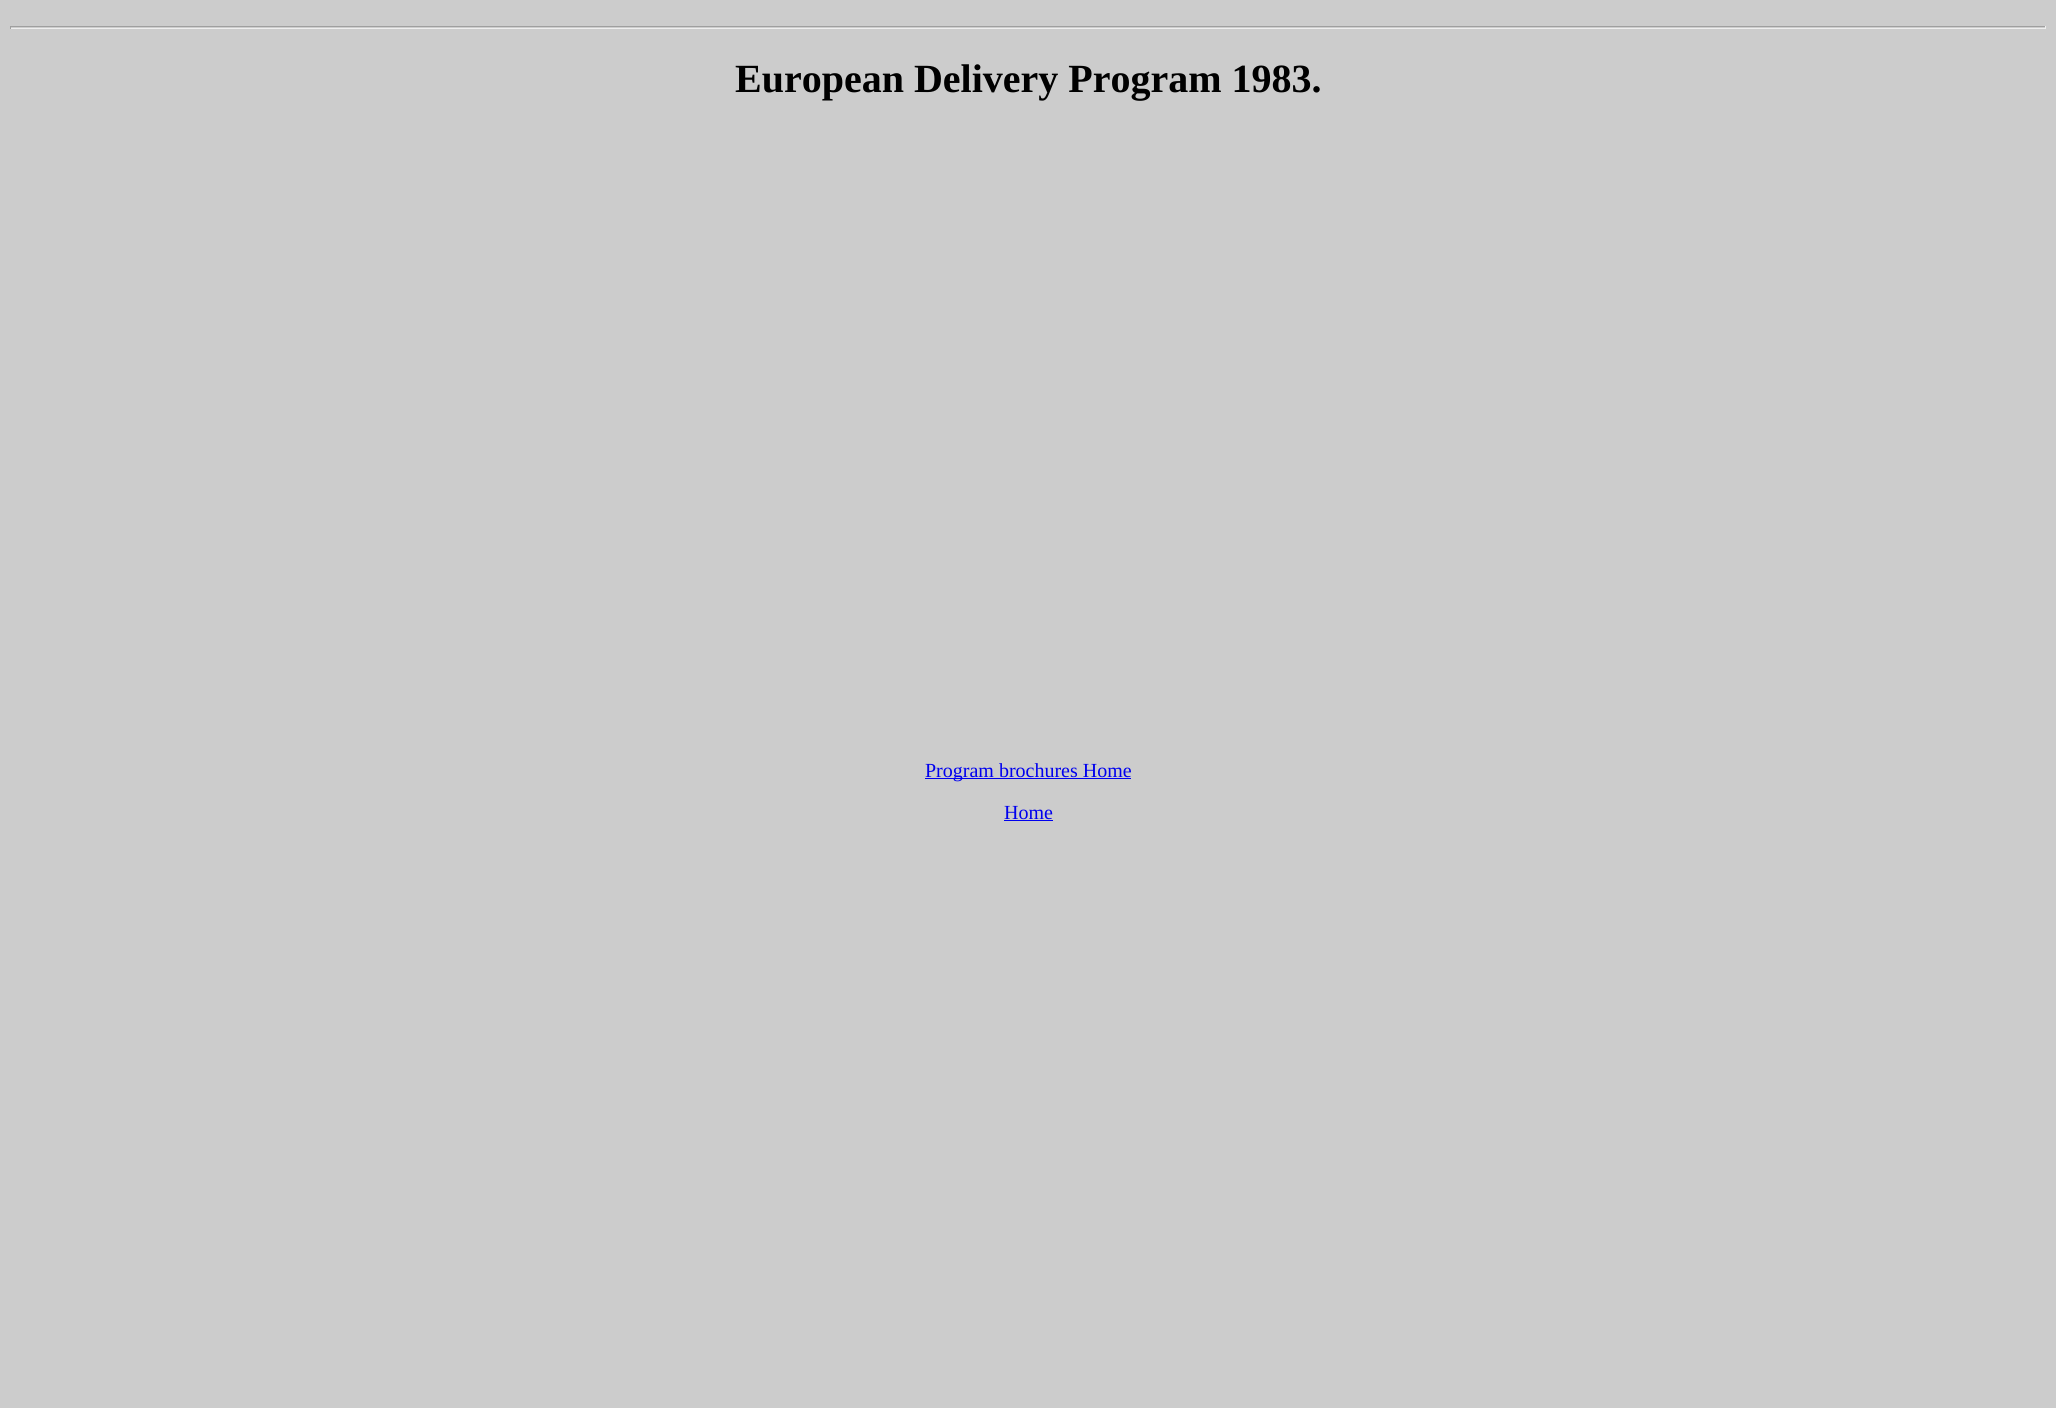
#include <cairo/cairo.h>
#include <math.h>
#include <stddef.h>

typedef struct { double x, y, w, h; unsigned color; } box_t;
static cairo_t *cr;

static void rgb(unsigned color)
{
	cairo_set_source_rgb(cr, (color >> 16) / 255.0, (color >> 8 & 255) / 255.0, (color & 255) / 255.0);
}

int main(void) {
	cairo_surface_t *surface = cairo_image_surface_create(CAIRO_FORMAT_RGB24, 2056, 1408);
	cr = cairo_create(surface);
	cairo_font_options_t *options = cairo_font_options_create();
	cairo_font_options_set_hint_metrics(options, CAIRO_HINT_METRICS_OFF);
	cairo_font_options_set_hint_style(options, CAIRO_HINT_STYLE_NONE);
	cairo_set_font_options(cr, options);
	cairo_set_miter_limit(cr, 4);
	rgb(0xcccccc);
	cairo_paint(cr);
	{
		static const box_t items[] = {
			{10, 26, 2036, 1, 0x9f9f9f},
			{2045, 26, 1, 3, 0xeeeeee},
			{10, 28, 2036, 1, 0xeeeeee},
			{10, 26, 1, 3, 0x9f9f9f},
			{925, 778, 206, 1, 0x0000ee},
			{1004, 820, 49, 1, 0x0000ee},
		};
		for (size_t i = 0; i < sizeof items / sizeof *items; i++) {
			rgb(items[i].color);
			cairo_rectangle(cr, items[i].x, items[i].y, items[i].w, items[i].h);
			cairo_fill(cr);
		}
	}
	cairo_select_font_face(cr, "Liberation Serif", CAIRO_FONT_SLANT_NORMAL, CAIRO_FONT_WEIGHT_BOLD);
	cairo_set_font_size(cr, 40);
	rgb(0x000000);
	cairo_move_to(cr, 735, 92);
	cairo_show_text(cr, "European Delivery Program 1983.");
	cairo_select_font_face(cr, "Liberation Serif", CAIRO_FONT_SLANT_NORMAL, CAIRO_FONT_WEIGHT_NORMAL);
	cairo_set_font_size(cr, 20);
	rgb(0x0000ee);
	cairo_move_to(cr, 925, 777);
	cairo_show_text(cr, "Program brochures Home");
	cairo_move_to(cr, 1004, 819);
	cairo_show_text(cr, "Home");
	cairo_surface_write_to_png(surface, "page.png");
	cairo_font_options_destroy(options);
	cairo_destroy(cr);
	cairo_surface_destroy(surface);
	return 0;
}
